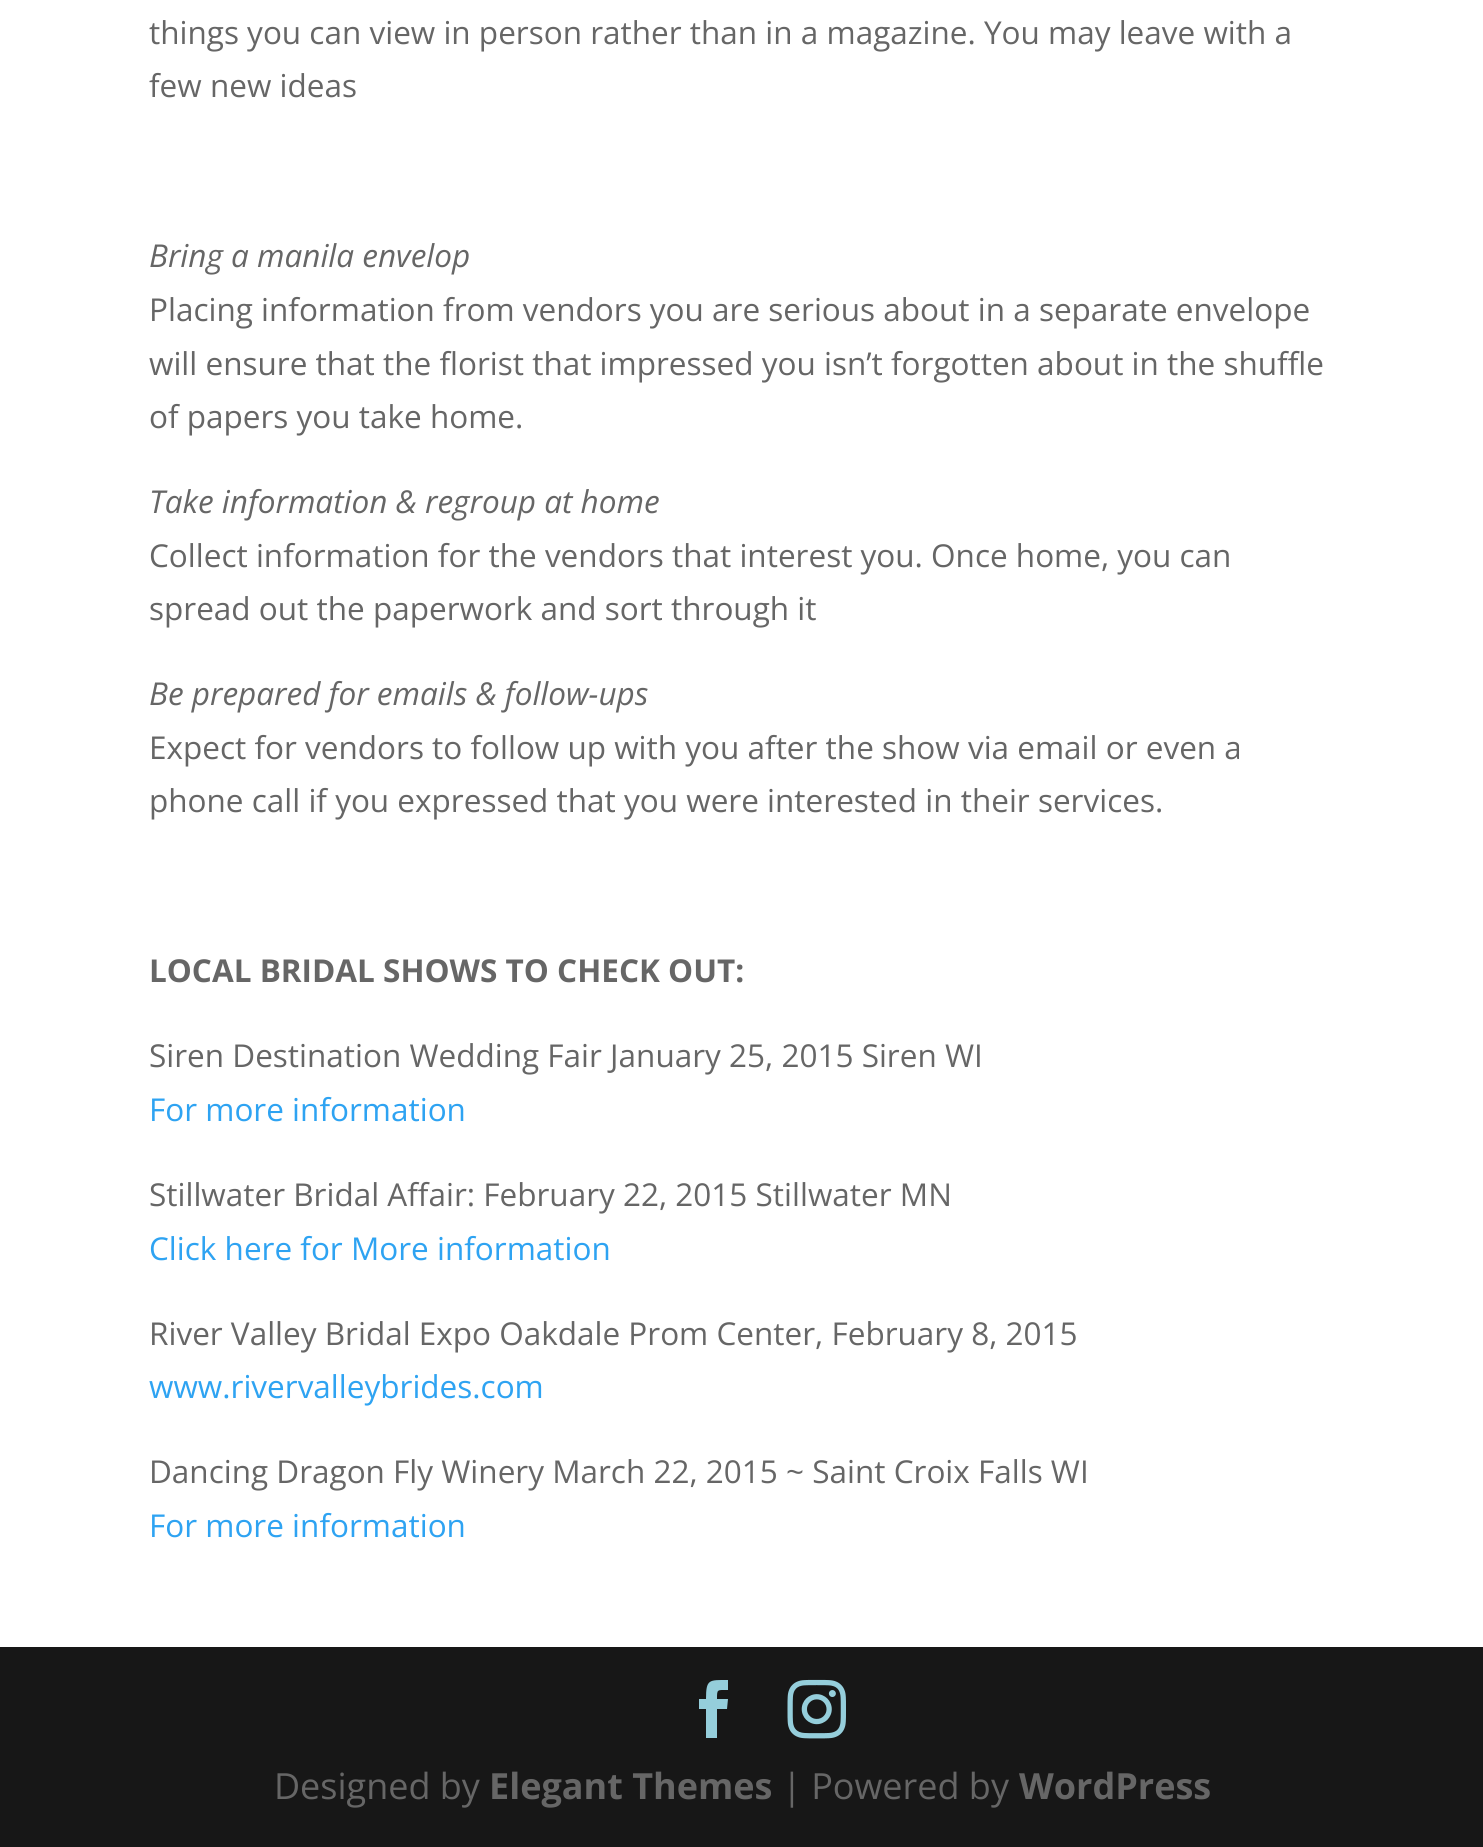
#include <cairo/cairo.h>
#include <math.h>
#include <stddef.h>

typedef struct { double x, y; const char *s; } line_t;
static cairo_t *cr;

static void rgb(unsigned color)
{
	cairo_set_source_rgb(cr, (color >> 16) / 255.0, (color >> 8 & 255) / 255.0, (color & 255) / 255.0);
}

static void image(const char *path, double x, double y, double w, double h)
{
	cairo_surface_t *image = cairo_image_surface_create_from_png(path);
	cairo_save(cr);
	cairo_set_source_surface(cr, image, x, y);
	cairo_rectangle(cr, x, y, w, h);
	cairo_fill(cr);
	cairo_restore(cr);
	cairo_surface_destroy(image);
}

int main(void) {
	cairo_surface_t *surface = cairo_image_surface_create(CAIRO_FORMAT_RGB24, 1483, 1847);
	cr = cairo_create(surface);
	cairo_font_options_t *options = cairo_font_options_create();
	cairo_font_options_set_hint_metrics(options, CAIRO_HINT_METRICS_OFF);
	cairo_font_options_set_hint_style(options, CAIRO_HINT_STYLE_NONE);
	cairo_set_font_options(cr, options);
	cairo_set_miter_limit(cr, 4);
	rgb(0xffffff);
	cairo_paint(cr);
	rgb(0x171717);
	cairo_rectangle(cr, 0, 1647, 1483, 200);
	cairo_fill(cr);
	rgb(0x95cedb);
	cairo_new_path(cr);
	cairo_move_to(cr, 706, 1738);
	cairo_line_to(cr, 717, 1738);
	cairo_line_to(cr, 717, 1709);
	cairo_line_to(cr, 727, 1709);
	cairo_line_to(cr, 728, 1699);
	cairo_line_to(cr, 717, 1699);
	cairo_curve_to(cr, 717, 1689, 717, 1690, 728, 1690);
	cairo_line_to(cr, 728, 1680);
	cairo_curve_to(cr, 709, 1680, 706, 1679, 706, 1699);
	cairo_line_to(cr, 699, 1699);
	cairo_line_to(cr, 699, 1709);
	cairo_line_to(cr, 706, 1709);
	cairo_close_path(cr);
	cairo_fill(cr);
	image("img/1.png", 787, 1679, 59, 60);
	cairo_select_font_face(cr, "Open Sans", CAIRO_FONT_SLANT_NORMAL, CAIRO_FONT_WEIGHT_NORMAL);
	cairo_set_font_size(cr, 31.5);
	rgb(0x666666);
	cairo_move_to(cr, 149, 44);
	cairo_show_text(cr, "things you can view in person rather than in a magazine. You may leave with a");
	cairo_move_to(cr, 149, 97);
	cairo_show_text(cr, "few new ideas");
	cairo_select_font_face(cr, "Open Sans", CAIRO_FONT_SLANT_ITALIC, CAIRO_FONT_WEIGHT_NORMAL);
	cairo_move_to(cr, 149, 267);
	cairo_show_text(cr, "Bring a manila envelop");
	cairo_select_font_face(cr, "Open Sans", CAIRO_FONT_SLANT_NORMAL, CAIRO_FONT_WEIGHT_NORMAL);
	{
		static const line_t items[] = {
			{149, 321, "Placing information from vendors you are serious about in a separate envelope"},
			{149, 375, "will ensure that the florist that impressed you isn’t forgotten about in the shuffle"},
			{149, 428, "of papers you take home."},
		};
		for (size_t i = 0; i < sizeof items / sizeof *items; i++) {
			cairo_move_to(cr, items[i].x, items[i].y);
			cairo_show_text(cr, items[i].s);
		}
	}
	cairo_select_font_face(cr, "Open Sans", CAIRO_FONT_SLANT_ITALIC, CAIRO_FONT_WEIGHT_NORMAL);
	cairo_move_to(cr, 149, 513);
	cairo_show_text(cr, "Take information & regroup at home");
	cairo_select_font_face(cr, "Open Sans", CAIRO_FONT_SLANT_NORMAL, CAIRO_FONT_WEIGHT_NORMAL);
	cairo_move_to(cr, 149, 567);
	cairo_show_text(cr, "Collect information for the vendors that interest you. Once home, you can");
	cairo_move_to(cr, 149, 620);
	cairo_show_text(cr, "spread out the paperwork and sort through it");
	cairo_select_font_face(cr, "Open Sans", CAIRO_FONT_SLANT_ITALIC, CAIRO_FONT_WEIGHT_NORMAL);
	cairo_move_to(cr, 149, 705);
	cairo_show_text(cr, "Be prepared for emails & follow-ups");
	cairo_select_font_face(cr, "Open Sans", CAIRO_FONT_SLANT_NORMAL, CAIRO_FONT_WEIGHT_NORMAL);
	cairo_move_to(cr, 149, 759);
	cairo_show_text(cr, "Expect for vendors to follow up with you after the show via email or even a");
	cairo_move_to(cr, 149, 812);
	cairo_show_text(cr, "phone call if you expressed that you were interested in their services.");
	cairo_select_font_face(cr, "Open Sans", CAIRO_FONT_SLANT_NORMAL, CAIRO_FONT_WEIGHT_BOLD);
	cairo_move_to(cr, 149, 982);
	cairo_show_text(cr, "LOCAL BRIDAL SHOWS TO CHECK OUT:");
	cairo_select_font_face(cr, "Open Sans", CAIRO_FONT_SLANT_NORMAL, CAIRO_FONT_WEIGHT_NORMAL);
	cairo_move_to(cr, 149, 1067);
	cairo_show_text(cr, "Siren Destination Wedding Fair January 25, 2015 Siren WI");
	rgb(0x2ea3f2);
	cairo_move_to(cr, 149, 1121);
	cairo_show_text(cr, "For more information");
	rgb(0x666666);
	cairo_move_to(cr, 149, 1206);
	cairo_show_text(cr, "Stillwater Bridal Affair: February 22, 2015 Stillwater MN");
	rgb(0x2ea3f2);
	cairo_move_to(cr, 149, 1260);
	cairo_show_text(cr, "Click here for More information");
	rgb(0x666666);
	cairo_move_to(cr, 149, 1345);
	cairo_show_text(cr, "River Valley Bridal Expo Oakdale Prom Center, February 8, 2015");
	rgb(0x2ea3f2);
	cairo_move_to(cr, 149, 1398);
	cairo_show_text(cr, "www.rivervalleybrides.com");
	rgb(0x666666);
	cairo_move_to(cr, 149, 1483);
	cairo_show_text(cr, "Dancing Dragon Fly Winery March 22, 2015 ~ Saint Croix Falls WI");
	rgb(0x2ea3f2);
	cairo_move_to(cr, 149, 1537);
	cairo_show_text(cr, "For more information");
	cairo_set_font_size(cr, 36);
	rgb(0x666666);
	cairo_move_to(cr, 274, 1799);
	cairo_show_text(cr, "Designed by");
	cairo_select_font_face(cr, "Open Sans", CAIRO_FONT_SLANT_NORMAL, CAIRO_FONT_WEIGHT_BOLD);
	cairo_move_to(cr, 489, 1799);
	cairo_show_text(cr, "Elegant Themes");
	cairo_select_font_face(cr, "Open Sans", CAIRO_FONT_SLANT_NORMAL, CAIRO_FONT_WEIGHT_NORMAL);
	cairo_move_to(cr, 782, 1799);
	cairo_show_text(cr, "| Powered by");
	cairo_select_font_face(cr, "Open Sans", CAIRO_FONT_SLANT_NORMAL, CAIRO_FONT_WEIGHT_BOLD);
	cairo_move_to(cr, 1019, 1799);
	cairo_show_text(cr, "WordPress");
	cairo_surface_write_to_png(surface, "page.png");
	cairo_font_options_destroy(options);
	cairo_destroy(cr);
	cairo_surface_destroy(surface);
	return 0;
}
